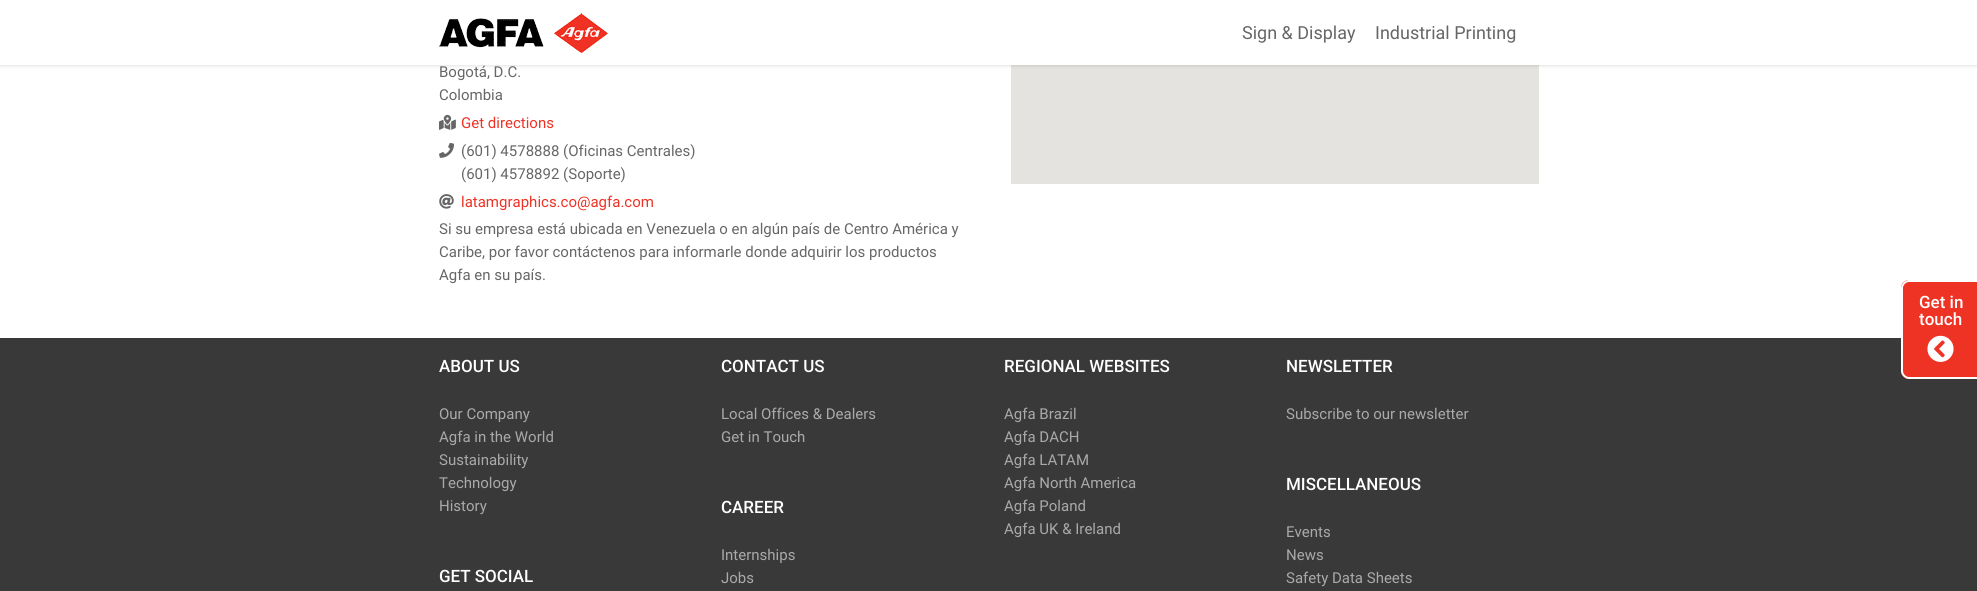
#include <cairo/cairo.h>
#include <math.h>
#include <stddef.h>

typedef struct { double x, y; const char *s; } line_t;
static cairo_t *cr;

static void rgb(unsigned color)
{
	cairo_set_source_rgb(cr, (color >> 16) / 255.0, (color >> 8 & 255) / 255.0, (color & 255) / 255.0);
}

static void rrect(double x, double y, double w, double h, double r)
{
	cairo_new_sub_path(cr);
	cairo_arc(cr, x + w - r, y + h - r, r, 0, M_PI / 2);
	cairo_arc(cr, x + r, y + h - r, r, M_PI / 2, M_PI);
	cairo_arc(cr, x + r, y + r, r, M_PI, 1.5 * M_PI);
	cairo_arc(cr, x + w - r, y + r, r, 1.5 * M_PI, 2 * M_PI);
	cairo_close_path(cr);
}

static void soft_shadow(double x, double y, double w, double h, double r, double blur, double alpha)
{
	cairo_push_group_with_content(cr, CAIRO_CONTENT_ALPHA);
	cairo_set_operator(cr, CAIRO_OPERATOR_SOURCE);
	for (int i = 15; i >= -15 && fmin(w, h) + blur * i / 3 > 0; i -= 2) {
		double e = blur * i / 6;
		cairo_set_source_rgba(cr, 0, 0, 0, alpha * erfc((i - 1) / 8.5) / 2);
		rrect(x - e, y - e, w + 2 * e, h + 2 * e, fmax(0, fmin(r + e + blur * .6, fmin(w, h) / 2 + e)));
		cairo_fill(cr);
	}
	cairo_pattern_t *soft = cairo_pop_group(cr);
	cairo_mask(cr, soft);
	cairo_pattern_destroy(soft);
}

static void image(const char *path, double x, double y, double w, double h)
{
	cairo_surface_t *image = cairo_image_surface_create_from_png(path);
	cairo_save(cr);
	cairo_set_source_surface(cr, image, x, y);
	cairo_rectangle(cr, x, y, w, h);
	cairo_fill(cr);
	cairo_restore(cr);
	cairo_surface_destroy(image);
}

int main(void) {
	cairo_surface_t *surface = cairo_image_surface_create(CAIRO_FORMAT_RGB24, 1977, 591);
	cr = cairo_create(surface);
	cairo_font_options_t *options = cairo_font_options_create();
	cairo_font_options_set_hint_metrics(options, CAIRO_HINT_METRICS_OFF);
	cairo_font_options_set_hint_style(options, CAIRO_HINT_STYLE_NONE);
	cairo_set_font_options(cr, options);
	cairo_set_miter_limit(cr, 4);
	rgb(0xffffff);
	cairo_paint(cr);
	rgb(0xe5e3df);
	cairo_rectangle(cr, 1011, 65, 528, 119);
	cairo_fill(cr);
	rgb(0x000000);
	soft_shadow(0, 1, 1977, 65, 0, 1.5, 0.12);
	rgb(0xffffff);
	cairo_rectangle(cr, 0, 0, 1977, 65);
	cairo_fill(cr);
	image("img/1.png", 439, 13, 169, 40);
	image("img/2.png", 439, 114, 17, 16);
	image("img/3.png", 439, 142, 15, 16);
	image("img/4.png", 439, 194, 15, 15);
	rgb(0x393939);
	cairo_rectangle(cr, 0, 338, 1977, 253);
	cairo_fill(cr);
	rgb(0xee3224);
	cairo_new_path(cr);
	cairo_move_to(cr, 1909, 280);
	cairo_line_to(cr, 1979, 280);
	cairo_line_to(cr, 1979, 379);
	cairo_line_to(cr, 1909, 379);
	cairo_curve_to(cr, 1904.5, 379, 1901, 375.5, 1901, 371);
	cairo_line_to(cr, 1901, 288);
	cairo_curve_to(cr, 1901, 283.5, 1904.5, 280, 1909, 280);
	cairo_close_path(cr);
	cairo_fill(cr);
	rgb(0xffffff);
	cairo_set_fill_rule(cr, CAIRO_FILL_RULE_EVEN_ODD);
	cairo_new_path(cr);
	cairo_move_to(cr, 1909, 280);
	cairo_line_to(cr, 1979, 280);
	cairo_line_to(cr, 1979, 379);
	cairo_line_to(cr, 1909, 379);
	cairo_curve_to(cr, 1905, 379, 1901, 375, 1901, 371);
	cairo_line_to(cr, 1901, 288);
	cairo_curve_to(cr, 1901, 284, 1905, 280, 1909, 280);
	cairo_close_path(cr);
	cairo_move_to(cr, 1909, 282);
	cairo_line_to(cr, 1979, 282);
	cairo_line_to(cr, 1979, 377);
	cairo_line_to(cr, 1909, 377);
	cairo_curve_to(cr, 1906, 377, 1903, 374, 1903, 371);
	cairo_line_to(cr, 1903, 288);
	cairo_curve_to(cr, 1903, 285, 1906, 282, 1909, 282);
	cairo_close_path(cr);
	cairo_fill(cr);
	image("img/5.png", 1927, 335, 27, 27);
	cairo_select_font_face(cr, "Roboto", CAIRO_FONT_SLANT_NORMAL, CAIRO_FONT_WEIGHT_NORMAL);
	cairo_set_font_size(cr, 18);
	rgb(0x666666);
	cairo_move_to(cr, 1242, 39);
	cairo_show_text(cr, "Sign & Display");
	cairo_move_to(cr, 1375, 39);
	cairo_show_text(cr, "Industrial Printing");
	cairo_set_font_size(cr, 15);
	cairo_move_to(cr, 439, 77);
	cairo_show_text(cr, "Bogotá, D.C.");
	cairo_move_to(cr, 439, 100);
	cairo_show_text(cr, "Colombia");
	rgb(0xee3224);
	cairo_move_to(cr, 461, 128);
	cairo_show_text(cr, "Get directions");
	rgb(0x666666);
	cairo_move_to(cr, 461, 156);
	cairo_show_text(cr, "(601) 4578888 (Oficinas Centrales)");
	cairo_move_to(cr, 461, 179);
	cairo_show_text(cr, "(601) 4578892 (Soporte)");
	rgb(0xee3224);
	cairo_move_to(cr, 461, 207);
	cairo_show_text(cr, "latamgraphics.co@agfa.com");
	rgb(0x666666);
	{
		static const line_t items[] = {
			{439, 234, "Si su empresa está ubicada en Venezuela o en algún país de Centro América y"},
			{439, 257, "Caribe, por favor contáctenos para informarle donde adquirir los productos"},
			{439, 280, "Agfa en su país."},
		};
		for (size_t i = 0; i < sizeof items / sizeof *items; i++) {
			cairo_move_to(cr, items[i].x, items[i].y);
			cairo_show_text(cr, items[i].s);
		}
	}
	cairo_select_font_face(cr, "Roboto Medium", CAIRO_FONT_SLANT_NORMAL, CAIRO_FONT_WEIGHT_NORMAL);
	cairo_set_font_size(cr, 17);
	rgb(0xffffff);
	cairo_move_to(cr, 439, 372);
	cairo_show_text(cr, "ABOUT US");
	cairo_select_font_face(cr, "Roboto", CAIRO_FONT_SLANT_NORMAL, CAIRO_FONT_WEIGHT_NORMAL);
	cairo_set_font_size(cr, 15);
	rgb(0xaaaaaa);
	{
		static const line_t items[] = {
			{439, 419, "Our Company"},
			{439, 442, "Agfa in the World"},
			{439, 465, "Sustainability"},
			{439, 488, "Technology"},
			{439, 511, "History"},
		};
		for (size_t i = 0; i < sizeof items / sizeof *items; i++) {
			cairo_move_to(cr, items[i].x, items[i].y);
			cairo_show_text(cr, items[i].s);
		}
	}
	cairo_select_font_face(cr, "Roboto Medium", CAIRO_FONT_SLANT_NORMAL, CAIRO_FONT_WEIGHT_NORMAL);
	cairo_set_font_size(cr, 17);
	rgb(0xffffff);
	cairo_move_to(cr, 439, 582);
	cairo_show_text(cr, "GET SOCIAL");
	cairo_move_to(cr, 721, 372);
	cairo_show_text(cr, "CONTACT US");
	cairo_select_font_face(cr, "Roboto", CAIRO_FONT_SLANT_NORMAL, CAIRO_FONT_WEIGHT_NORMAL);
	cairo_set_font_size(cr, 15);
	rgb(0xaaaaaa);
	cairo_move_to(cr, 721, 419);
	cairo_show_text(cr, "Local Offices & Dealers");
	cairo_move_to(cr, 721, 442);
	cairo_show_text(cr, "Get in Touch");
	cairo_select_font_face(cr, "Roboto Medium", CAIRO_FONT_SLANT_NORMAL, CAIRO_FONT_WEIGHT_NORMAL);
	cairo_set_font_size(cr, 17);
	rgb(0xffffff);
	cairo_move_to(cr, 721, 513);
	cairo_show_text(cr, "CAREER");
	cairo_select_font_face(cr, "Roboto", CAIRO_FONT_SLANT_NORMAL, CAIRO_FONT_WEIGHT_NORMAL);
	cairo_set_font_size(cr, 15);
	rgb(0xaaaaaa);
	cairo_move_to(cr, 721, 560);
	cairo_show_text(cr, "Internships");
	cairo_move_to(cr, 721, 583);
	cairo_show_text(cr, "Jobs");
	cairo_select_font_face(cr, "Roboto Medium", CAIRO_FONT_SLANT_NORMAL, CAIRO_FONT_WEIGHT_NORMAL);
	cairo_set_font_size(cr, 17);
	rgb(0xffffff);
	cairo_move_to(cr, 1004, 372);
	cairo_show_text(cr, "REGIONAL WEBSITES");
	cairo_select_font_face(cr, "Roboto", CAIRO_FONT_SLANT_NORMAL, CAIRO_FONT_WEIGHT_NORMAL);
	cairo_set_font_size(cr, 15);
	rgb(0xaaaaaa);
	{
		static const line_t items[] = {
			{1004, 419, "Agfa Brazil"},
			{1004, 442, "Agfa DACH"},
			{1004, 465, "Agfa LATAM"},
			{1004, 488, "Agfa North America"},
			{1004, 511, "Agfa Poland"},
			{1004, 534, "Agfa UK & Ireland"},
		};
		for (size_t i = 0; i < sizeof items / sizeof *items; i++) {
			cairo_move_to(cr, items[i].x, items[i].y);
			cairo_show_text(cr, items[i].s);
		}
	}
	cairo_select_font_face(cr, "Roboto Medium", CAIRO_FONT_SLANT_NORMAL, CAIRO_FONT_WEIGHT_NORMAL);
	cairo_set_font_size(cr, 17);
	rgb(0xffffff);
	cairo_move_to(cr, 1286, 372);
	cairo_show_text(cr, "NEWSLETTER");
	cairo_select_font_face(cr, "Roboto", CAIRO_FONT_SLANT_NORMAL, CAIRO_FONT_WEIGHT_NORMAL);
	cairo_set_font_size(cr, 15);
	rgb(0xaaaaaa);
	cairo_move_to(cr, 1286, 419);
	cairo_show_text(cr, "Subscribe to our newsletter");
	cairo_select_font_face(cr, "Roboto Medium", CAIRO_FONT_SLANT_NORMAL, CAIRO_FONT_WEIGHT_NORMAL);
	cairo_set_font_size(cr, 17);
	rgb(0xffffff);
	cairo_move_to(cr, 1286, 490);
	cairo_show_text(cr, "MISCELLANEOUS");
	cairo_select_font_face(cr, "Roboto", CAIRO_FONT_SLANT_NORMAL, CAIRO_FONT_WEIGHT_NORMAL);
	cairo_set_font_size(cr, 15);
	rgb(0xaaaaaa);
	{
		static const line_t items[] = {
			{1286, 537, "Events"},
			{1286, 560, "News"},
			{1286, 583, "Safety Data Sheets"},
		};
		for (size_t i = 0; i < sizeof items / sizeof *items; i++) {
			cairo_move_to(cr, items[i].x, items[i].y);
			cairo_show_text(cr, items[i].s);
		}
	}
	cairo_select_font_face(cr, "Roboto Medium", CAIRO_FONT_SLANT_NORMAL, CAIRO_FONT_WEIGHT_NORMAL);
	cairo_set_font_size(cr, 17);
	rgb(0xffffff);
	cairo_move_to(cr, 1919, 308);
	cairo_show_text(cr, "Get in");
	cairo_move_to(cr, 1919, 325);
	cairo_show_text(cr, "touch");
	cairo_surface_write_to_png(surface, "page.png");
	cairo_font_options_destroy(options);
	cairo_destroy(cr);
	cairo_surface_destroy(surface);
	return 0;
}
